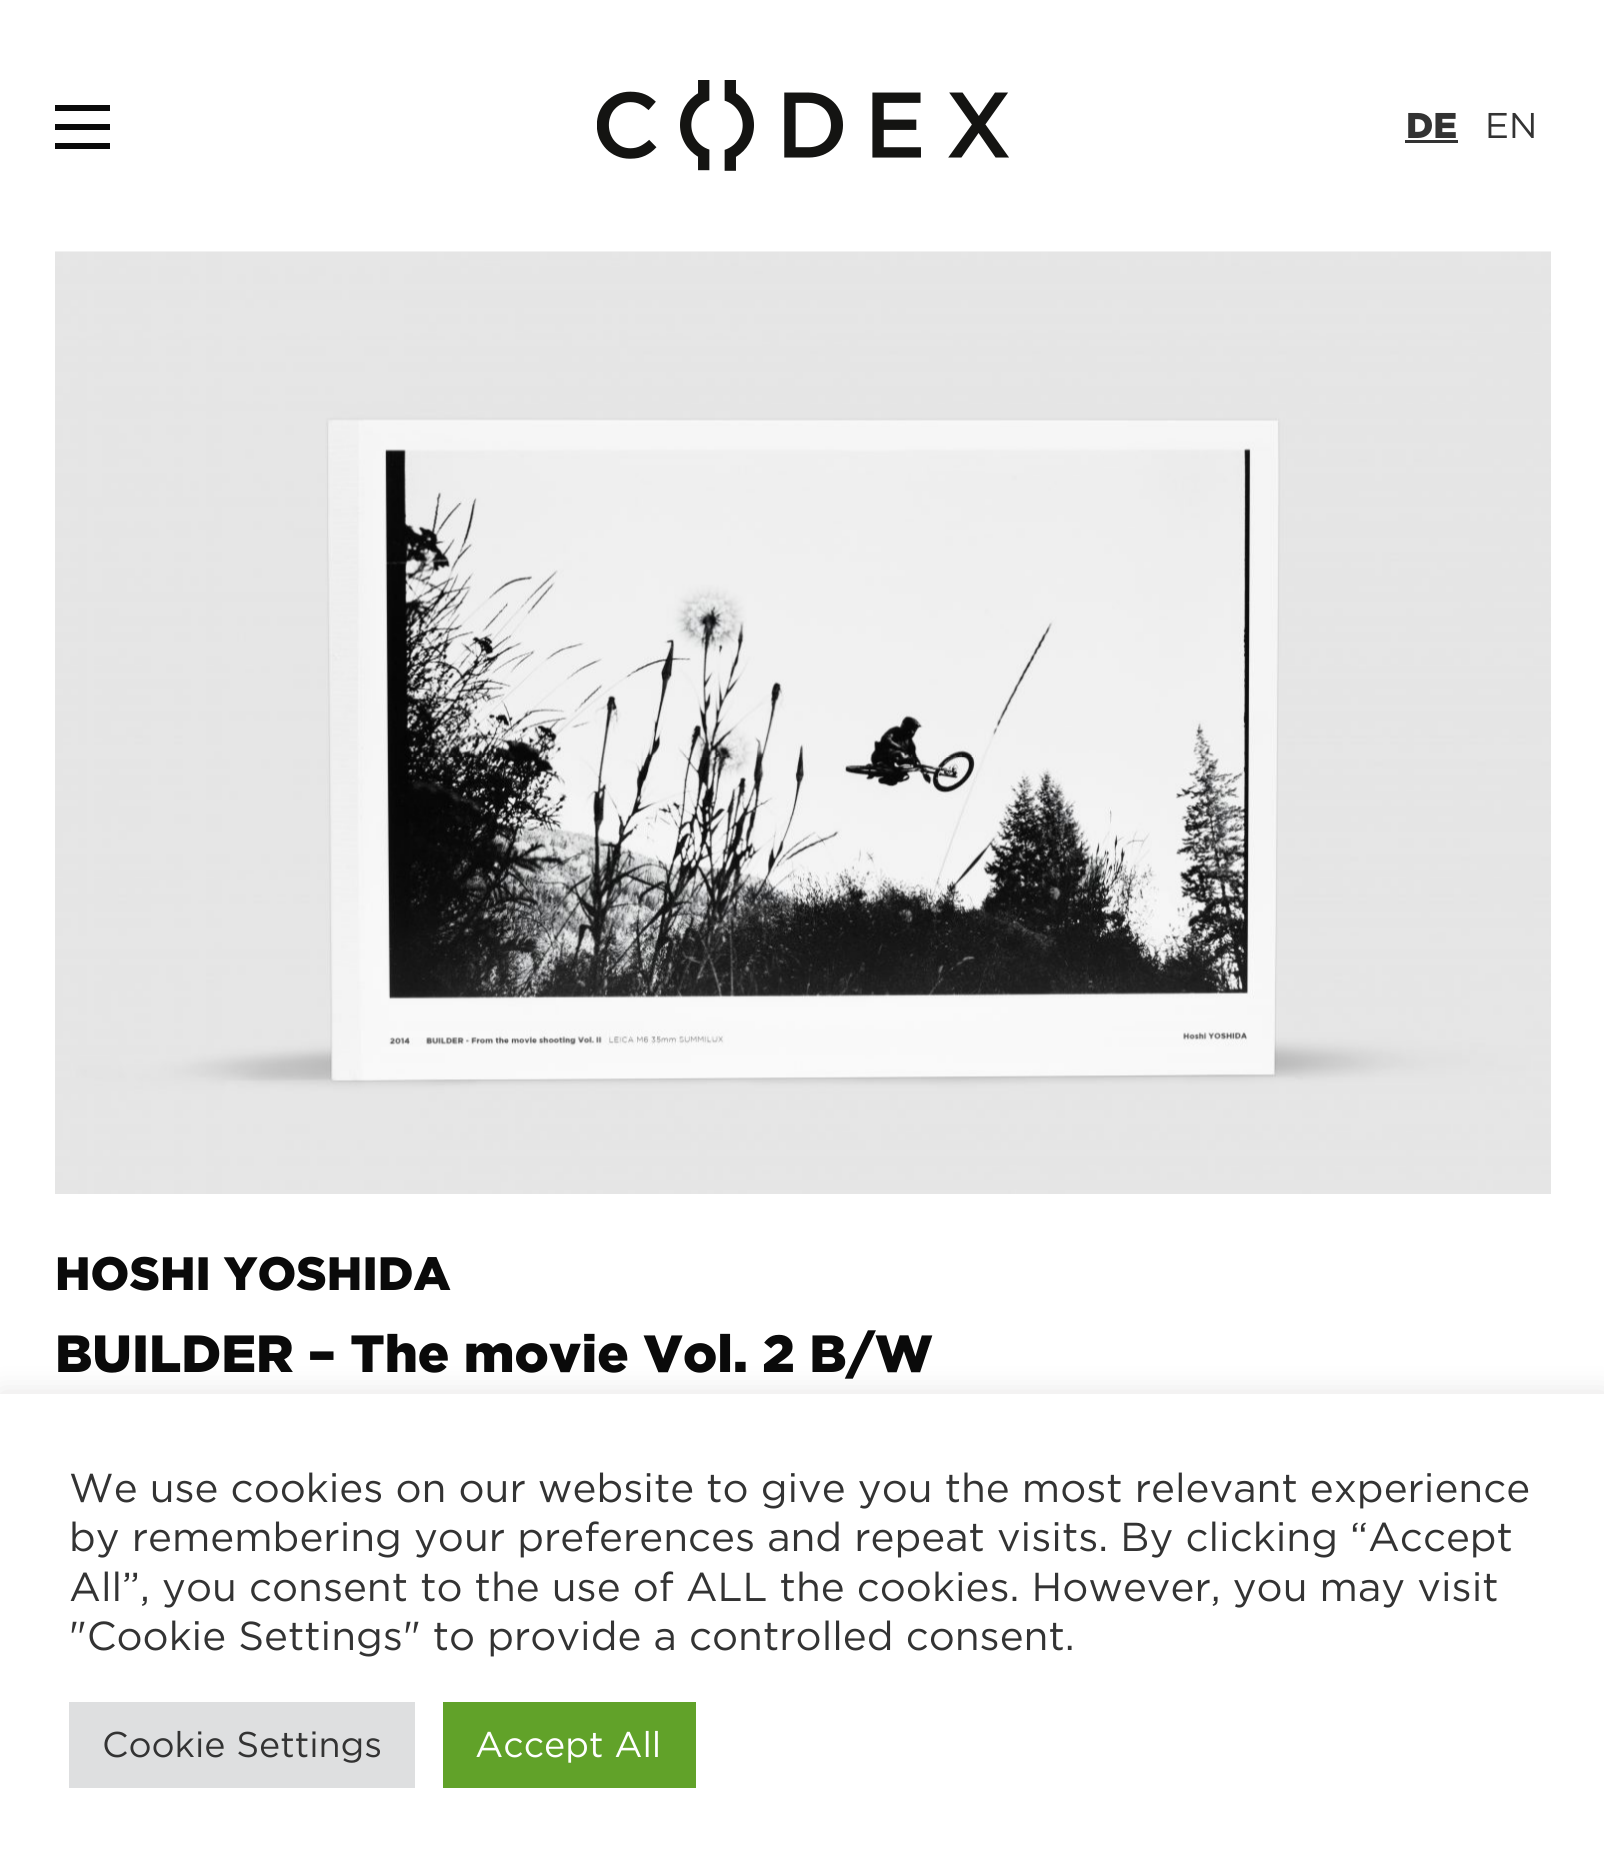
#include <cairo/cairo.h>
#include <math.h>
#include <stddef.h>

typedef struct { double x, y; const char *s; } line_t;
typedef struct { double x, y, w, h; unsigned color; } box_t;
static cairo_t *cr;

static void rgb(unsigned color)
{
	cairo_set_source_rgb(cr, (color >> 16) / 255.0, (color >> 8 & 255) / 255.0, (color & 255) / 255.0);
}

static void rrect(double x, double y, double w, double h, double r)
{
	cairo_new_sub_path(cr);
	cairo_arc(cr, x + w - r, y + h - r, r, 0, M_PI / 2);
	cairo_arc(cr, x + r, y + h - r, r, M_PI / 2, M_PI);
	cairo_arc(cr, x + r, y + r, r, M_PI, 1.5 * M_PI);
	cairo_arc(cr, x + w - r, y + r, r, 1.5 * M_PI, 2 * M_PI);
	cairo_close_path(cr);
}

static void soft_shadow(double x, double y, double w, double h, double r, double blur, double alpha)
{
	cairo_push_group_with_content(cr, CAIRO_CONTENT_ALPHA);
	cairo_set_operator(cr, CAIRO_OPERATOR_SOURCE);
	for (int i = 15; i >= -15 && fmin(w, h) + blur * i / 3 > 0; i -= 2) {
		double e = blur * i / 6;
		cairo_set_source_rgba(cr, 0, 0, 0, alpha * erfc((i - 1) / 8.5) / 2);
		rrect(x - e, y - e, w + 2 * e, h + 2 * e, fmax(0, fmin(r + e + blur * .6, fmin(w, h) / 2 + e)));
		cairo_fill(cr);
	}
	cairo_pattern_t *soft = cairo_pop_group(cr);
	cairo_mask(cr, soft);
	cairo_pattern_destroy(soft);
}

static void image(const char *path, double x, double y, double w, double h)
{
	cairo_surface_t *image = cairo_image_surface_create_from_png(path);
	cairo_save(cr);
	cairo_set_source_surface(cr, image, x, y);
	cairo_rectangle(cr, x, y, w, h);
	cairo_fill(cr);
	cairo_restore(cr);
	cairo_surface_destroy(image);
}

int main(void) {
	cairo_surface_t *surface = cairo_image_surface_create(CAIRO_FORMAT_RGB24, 1604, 1870);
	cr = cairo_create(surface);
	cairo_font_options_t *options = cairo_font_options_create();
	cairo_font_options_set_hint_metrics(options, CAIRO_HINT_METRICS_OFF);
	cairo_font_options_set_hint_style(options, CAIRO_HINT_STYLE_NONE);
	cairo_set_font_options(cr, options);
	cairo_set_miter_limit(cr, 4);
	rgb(0xffffff);
	cairo_paint(cr);
	{
		static const box_t items[] = {
			{55, 143, 55, 6, 0x0a0a0a},
			{55, 124, 55, 6, 0x0a0a0a},
			{55, 105, 55, 6, 0x0a0a0a},
		};
		for (size_t i = 0; i < sizeof items / sizeof *items; i++) {
			rgb(items[i].color);
			cairo_rectangle(cr, items[i].x, items[i].y, items[i].w, items[i].h);
			cairo_fill(cr);
		}
	}
	image("img/1.png", 597, 80, 412, 91);
	rgb(0x333333);
	cairo_rectangle(cr, 1405, 140, 53, 3);
	cairo_fill(cr);
	image("img/2.png", 55, 251, 1496, 943);
	rgb(0xacabab);
	soft_shadow(0, 1392, 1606, 475, 0, 14, 0.3);
	{
		static const box_t items[] = {
			{0, 1394, 1604, 476, 0xffffff},
			{69, 1702, 346, 86, 0xdedfe0},
			{443, 1702, 253, 86, 0x61a229},
		};
		for (size_t i = 0; i < sizeof items / sizeof *items; i++) {
			rgb(items[i].color);
			cairo_rectangle(cr, items[i].x, items[i].y, items[i].w, items[i].h);
			cairo_fill(cr);
		}
	}
	cairo_select_font_face(cr, "Gotham Black", CAIRO_FONT_SLANT_NORMAL, CAIRO_FONT_WEIGHT_NORMAL);
	cairo_set_font_size(cr, 35.75);
	rgb(0x333333);
	cairo_move_to(cr, 1406, 138);
	cairo_show_text(cr, "DE");
	cairo_select_font_face(cr, "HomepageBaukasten", CAIRO_FONT_SLANT_NORMAL, CAIRO_FONT_WEIGHT_NORMAL);
	cairo_move_to(cr, 1485, 138);
	cairo_show_text(cr, "EN");
	cairo_select_font_face(cr, "Gotham Black", CAIRO_FONT_SLANT_NORMAL, CAIRO_FONT_WEIGHT_NORMAL);
	cairo_set_font_size(cr, 46.75);
	rgb(0x0a0a0a);
	cairo_move_to(cr, 55, 1290);
	cairo_show_text(cr, "HOSHI YOSHIDA");
	cairo_set_font_size(cr, 52.25);
	cairo_move_to(cr, 55, 1372);
	cairo_show_text(cr, "BUILDER – The movie Vol. 2 B/W");
	cairo_select_font_face(cr, "HomepageBaukasten", CAIRO_FONT_SLANT_NORMAL, CAIRO_FONT_WEIGHT_NORMAL);
	cairo_set_font_size(cr, 40.35);
	rgb(0x333333);
	{
		static const line_t items[] = {
			{69, 1502, "We use cookies on our website to give you the most relevant experience"},
			{69, 1551, "by remembering your preferences and repeat visits. By clicking “Accept"},
			{69, 1601, "All”, you consent to the use of ALL the cookies. However, you may visit"},
			{69, 1650, "\"Cookie Settings\" to provide a controlled consent."},
		};
		for (size_t i = 0; i < sizeof items / sizeof *items; i++) {
			cairo_move_to(cr, items[i].x, items[i].y);
			cairo_show_text(cr, items[i].s);
		}
	}
	cairo_set_font_size(cr, 35.75);
	cairo_move_to(cr, 102, 1757);
	cairo_show_text(cr, "Cookie Settings");
	rgb(0xffffff);
	cairo_move_to(cr, 475, 1757);
	cairo_show_text(cr, "Accept All");
	cairo_surface_write_to_png(surface, "page.png");
	cairo_font_options_destroy(options);
	cairo_destroy(cr);
	cairo_surface_destroy(surface);
	return 0;
}
